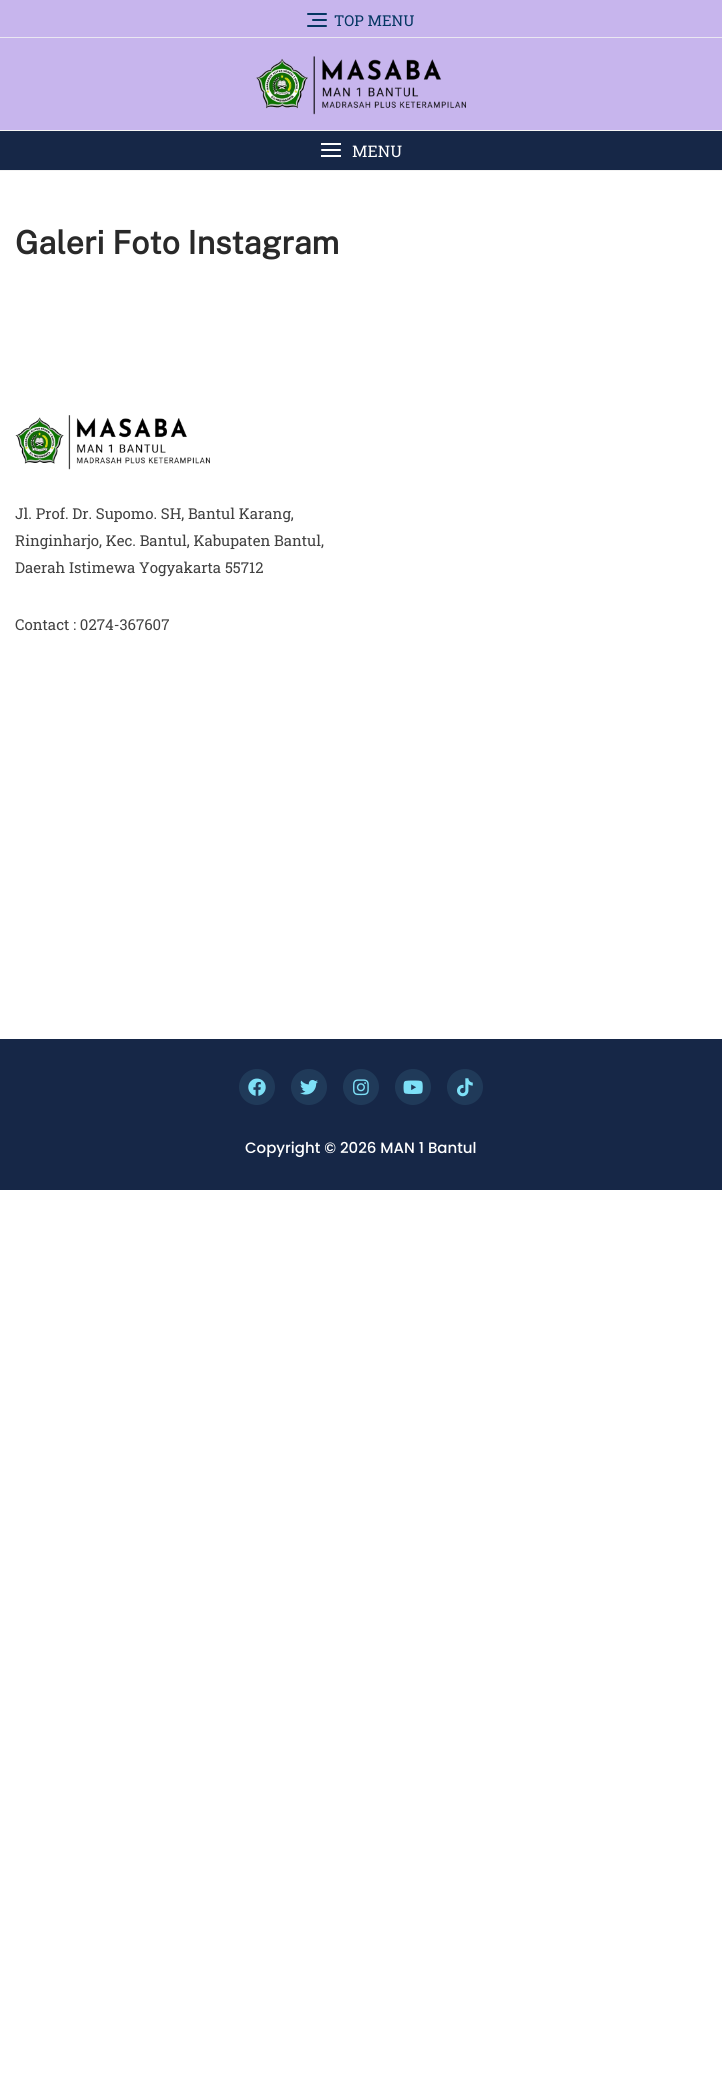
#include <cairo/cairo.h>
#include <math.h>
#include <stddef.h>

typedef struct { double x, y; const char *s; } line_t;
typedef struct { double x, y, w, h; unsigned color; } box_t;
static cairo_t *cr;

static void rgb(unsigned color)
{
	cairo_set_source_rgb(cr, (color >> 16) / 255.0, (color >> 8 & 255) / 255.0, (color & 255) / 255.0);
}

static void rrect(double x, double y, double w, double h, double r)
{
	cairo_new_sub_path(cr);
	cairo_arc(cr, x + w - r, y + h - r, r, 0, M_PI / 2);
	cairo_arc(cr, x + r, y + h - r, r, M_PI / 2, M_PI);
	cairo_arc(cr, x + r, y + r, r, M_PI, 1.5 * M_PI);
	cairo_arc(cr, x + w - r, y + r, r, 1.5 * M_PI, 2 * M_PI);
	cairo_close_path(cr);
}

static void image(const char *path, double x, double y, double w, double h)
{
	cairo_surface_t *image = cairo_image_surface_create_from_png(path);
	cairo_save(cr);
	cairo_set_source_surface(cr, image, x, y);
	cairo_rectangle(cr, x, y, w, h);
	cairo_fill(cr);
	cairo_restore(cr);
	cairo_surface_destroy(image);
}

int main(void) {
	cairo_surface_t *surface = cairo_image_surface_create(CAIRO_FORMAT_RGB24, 722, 2094);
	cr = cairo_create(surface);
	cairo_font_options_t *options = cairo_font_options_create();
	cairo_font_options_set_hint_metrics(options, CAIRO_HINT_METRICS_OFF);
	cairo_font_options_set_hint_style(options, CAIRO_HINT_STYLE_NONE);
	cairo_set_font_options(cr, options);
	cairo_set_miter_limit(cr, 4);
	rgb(0xffffff);
	cairo_paint(cr);
	rgb(0xc7b5ed);
	cairo_rectangle(cr, 0, 0, 722, 37);
	cairo_fill(cr);
	rgb(0xeae7f2);
	cairo_rectangle(cr, 0, 37, 722, 1);
	cairo_fill(cr);
	rgb(0x043662);
	rrect(312, 19, 15, 2, 1);
	cairo_fill(cr);
	rrect(307, 13, 20, 2, 1);
	cairo_fill(cr);
	rrect(307, 25, 20, 2, 1);
	cairo_fill(cr);
	rgb(0xf5f5f5);
	cairo_rectangle(cr, 0, 130, 722, 1);
	cairo_fill(cr);
	rgb(0xc7b5ed);
	cairo_rectangle(cr, 0, 38, 722, 92);
	cairo_fill(cr);
	image("img/1.png", 256, 56, 210, 59);
	rgb(0x162747);
	cairo_rectangle(cr, 0, 131, 722, 39);
	cairo_fill(cr);
	rgb(0xffffff);
	rrect(321, 149, 20, 2, 1);
	cairo_fill(cr);
	{
		static const box_t items[] = {
			{321, 143, 20, 2, 0xffffff},
			{321, 155, 20, 2, 0xffffff},
			{0, 170, 722, 1, 0xf2f2f2},
		};
		for (size_t i = 0; i < sizeof items / sizeof *items; i++) {
			rgb(items[i].color);
			cairo_rectangle(cr, items[i].x, items[i].y, items[i].w, items[i].h);
			cairo_fill(cr);
		}
	}
	image("img/2.png", 15, 415, 195, 55);
	rgb(0x162747);
	cairo_rectangle(cr, 0, 1039, 722, 151);
	cairo_fill(cr);
	rgb(0x203a59);
	cairo_arc(cr, 257, 1087, 18, 0, 2 * M_PI);
	cairo_fill(cr);
	image("img/3.png", 248, 1078, 18, 18);
	cairo_arc(cr, 309, 1087, 18, 0, 2 * M_PI);
	cairo_fill(cr);
	image("img/4.png", 300, 1079, 18, 16);
	cairo_arc(cr, 361, 1087, 18, 0, 2 * M_PI);
	cairo_fill(cr);
	image("img/5.png", 353, 1079, 16, 17);
	cairo_arc(cr, 413, 1087, 18, 0, 2 * M_PI);
	cairo_fill(cr);
	image("img/6.png", 403, 1080, 20, 14);
	cairo_arc(cr, 465, 1087, 18, 0, 2 * M_PI);
	cairo_fill(cr);
	image("img/7.png", 457, 1078, 16, 19);
	cairo_select_font_face(cr, "Roboto Slab", CAIRO_FONT_SLANT_NORMAL, CAIRO_FONT_WEIGHT_NORMAL);
	cairo_set_font_size(cr, 15);
	rgb(0x043662);
	cairo_move_to(cr, 334, 26);
	cairo_show_text(cr, "TOP MENU");
	cairo_set_font_size(cr, 16);
	rgb(0xffffff);
	cairo_move_to(cr, 352, 157);
	cairo_show_text(cr, "MENU");
	cairo_select_font_face(cr, "Public Sans", CAIRO_FONT_SLANT_NORMAL, CAIRO_FONT_WEIGHT_BOLD);
	cairo_set_font_size(cr, 32);
	rgb(0x292929);
	cairo_move_to(cr, 15, 254);
	cairo_show_text(cr, "Galeri Foto Instagram");
	cairo_select_font_face(cr, "Roboto Slab", CAIRO_FONT_SLANT_NORMAL, CAIRO_FONT_WEIGHT_NORMAL);
	cairo_set_font_size(cr, 15);
	rgb(0x414141);
	{
		static const line_t items[] = {
			{15, 519, "Jl. Prof. Dr. Supomo. SH, Bantul Karang,"},
			{15, 546, "Ringinharjo, Kec. Bantul, Kabupaten Bantul,"},
			{15, 573, "Daerah Istimewa Yogyakarta 55712"},
			{15, 630, "Contact : 0274-367607"},
		};
		for (size_t i = 0; i < sizeof items / sizeof *items; i++) {
			cairo_move_to(cr, items[i].x, items[i].y);
			cairo_show_text(cr, items[i].s);
		}
	}
	cairo_select_font_face(cr, "Poppins Medium", CAIRO_FONT_SLANT_NORMAL, CAIRO_FONT_WEIGHT_NORMAL);
	rgb(0xffffff);
	cairo_move_to(cr, 245, 1153);
	cairo_show_text(cr, "Copyright © 2026 MAN 1 Bantul");
	cairo_surface_write_to_png(surface, "page.png");
	cairo_font_options_destroy(options);
	cairo_destroy(cr);
	cairo_surface_destroy(surface);
	return 0;
}
